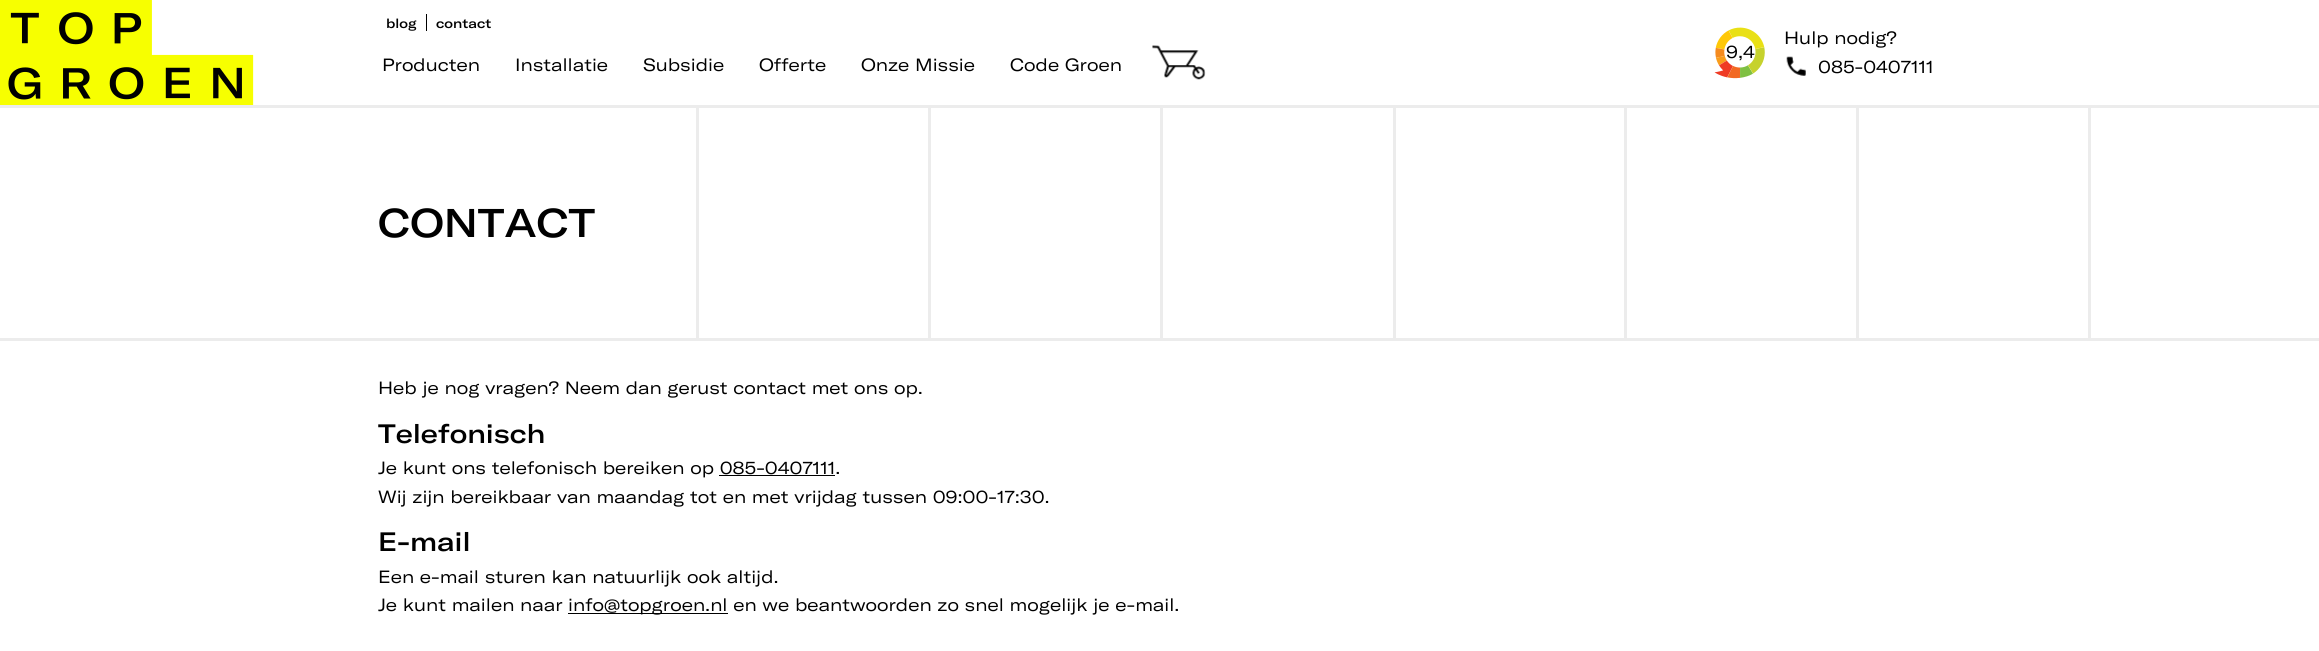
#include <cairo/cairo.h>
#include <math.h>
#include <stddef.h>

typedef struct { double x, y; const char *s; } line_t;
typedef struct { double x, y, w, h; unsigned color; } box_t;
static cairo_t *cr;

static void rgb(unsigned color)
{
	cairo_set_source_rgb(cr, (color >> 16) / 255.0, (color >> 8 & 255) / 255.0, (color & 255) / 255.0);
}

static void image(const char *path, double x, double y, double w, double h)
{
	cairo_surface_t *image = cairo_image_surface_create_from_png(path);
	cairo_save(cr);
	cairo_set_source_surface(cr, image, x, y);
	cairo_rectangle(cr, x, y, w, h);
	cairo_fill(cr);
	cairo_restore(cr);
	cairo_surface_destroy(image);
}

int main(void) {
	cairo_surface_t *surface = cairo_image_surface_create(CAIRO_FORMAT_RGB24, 2319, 651);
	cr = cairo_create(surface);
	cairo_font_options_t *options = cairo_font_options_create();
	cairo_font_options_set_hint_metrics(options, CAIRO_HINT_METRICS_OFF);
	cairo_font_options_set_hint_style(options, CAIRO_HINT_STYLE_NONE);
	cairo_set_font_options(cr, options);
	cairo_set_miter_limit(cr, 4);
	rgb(0xffffff);
	cairo_paint(cr);
	rgb(0xececec);
	cairo_rectangle(cr, 0, 105, 2319, 3);
	cairo_fill(cr);
	image("img/1.png", 0, 0, 254, 105);
	rgb(0x000000);
	cairo_rectangle(cr, 426, 14, 1, 17);
	cairo_fill(cr);
	image("img/2.png", 1152, 45, 54, 35);
	image("img/3.png", 1714, 27, 51, 52);
	image("img/4.png", 1786, 56, 20, 20);
	{
		static const box_t items[] = {
			{0, 338, 2319, 3, 0xececec},
			{696, 108, 3, 230, 0xececec},
			{928, 108, 3, 230, 0xececec},
			{1160, 108, 3, 230, 0xececec},
			{1393, 108, 3, 230, 0xececec},
			{1624, 108, 3, 230, 0xececec},
			{1856, 108, 3, 230, 0xececec},
			{2088, 108, 3, 230, 0xececec},
			{719, 475, 116, 1, 0x000000},
			{568, 613, 160, 1, 0x000000},
		};
		for (size_t i = 0; i < sizeof items / sizeof *items; i++) {
			rgb(items[i].color);
			cairo_rectangle(cr, items[i].x, items[i].y, items[i].w, items[i].h);
			cairo_fill(cr);
		}
	}
	cairo_select_font_face(cr, "GT America Medium", CAIRO_FONT_SLANT_NORMAL, CAIRO_FONT_WEIGHT_NORMAL);
	cairo_set_font_size(cr, 13);
	cairo_move_to(cr, 386, 28);
	cairo_show_text(cr, "blog");
	cairo_move_to(cr, 436, 28);
	cairo_show_text(cr, "contact");
	cairo_select_font_face(cr, "GT America", CAIRO_FONT_SLANT_NORMAL, CAIRO_FONT_WEIGHT_NORMAL);
	cairo_set_font_size(cr, 17.5);
	{
		static const line_t items[] = {
			{382, 71, "Producten"},
			{515, 71, "Installatie"},
			{643, 71, "Subsidie"},
			{759, 71, "Offerte"},
			{861, 71, "Onze Missie"},
			{1010, 71, "Code Groen"},
			{1726, 58, "9,4"},
			{1784, 44, "Hulp nodig?"},
			{1818, 73, "085-0407111"},
		};
		for (size_t i = 0; i < sizeof items / sizeof *items; i++) {
			cairo_move_to(cr, items[i].x, items[i].y);
			cairo_show_text(cr, items[i].s);
		}
	}
	cairo_select_font_face(cr, "GT America Medium", CAIRO_FONT_SLANT_NORMAL, CAIRO_FONT_WEIGHT_NORMAL);
	cairo_set_font_size(cr, 39.5);
	cairo_move_to(cr, 378, 237);
	cairo_show_text(cr, "CONTACT");
	cairo_select_font_face(cr, "GT America", CAIRO_FONT_SLANT_NORMAL, CAIRO_FONT_WEIGHT_NORMAL);
	cairo_set_font_size(cr, 17.5);
	cairo_move_to(cr, 378, 394);
	cairo_show_text(cr, "Heb je nog vragen? Neem dan gerust contact met ons op.");
	cairo_select_font_face(cr, "GT America Medium", CAIRO_FONT_SLANT_NORMAL, CAIRO_FONT_WEIGHT_NORMAL);
	cairo_set_font_size(cr, 26.25);
	cairo_move_to(cr, 378, 443);
	cairo_show_text(cr, "Telefonisch");
	cairo_select_font_face(cr, "GT America", CAIRO_FONT_SLANT_NORMAL, CAIRO_FONT_WEIGHT_NORMAL);
	cairo_set_font_size(cr, 17.5);
	cairo_move_to(cr, 378, 474);
	cairo_show_text(cr, "Je kunt ons telefonisch bereiken op 085-0407111.");
	cairo_move_to(cr, 378, 503);
	cairo_show_text(cr, "Wij zijn bereikbaar van maandag tot en met vrijdag tussen 09:00-17:30.");
	cairo_select_font_face(cr, "GT America Medium", CAIRO_FONT_SLANT_NORMAL, CAIRO_FONT_WEIGHT_NORMAL);
	cairo_set_font_size(cr, 26.25);
	cairo_move_to(cr, 378, 551);
	cairo_show_text(cr, "E-mail");
	cairo_select_font_face(cr, "GT America", CAIRO_FONT_SLANT_NORMAL, CAIRO_FONT_WEIGHT_NORMAL);
	cairo_set_font_size(cr, 17.5);
	{
		static const line_t items[] = {
			{378, 583, "Een e-mail sturen kan natuurlijk ook altijd."},
			{378, 611, "Je kunt mailen naar"},
			{568, 611, "info@topgroen.nl en we beantwoorden zo snel mogelijk je e-mail."},
		};
		for (size_t i = 0; i < sizeof items / sizeof *items; i++) {
			cairo_move_to(cr, items[i].x, items[i].y);
			cairo_show_text(cr, items[i].s);
		}
	}
	cairo_surface_write_to_png(surface, "page.png");
	cairo_font_options_destroy(options);
	cairo_destroy(cr);
	cairo_surface_destroy(surface);
	return 0;
}
